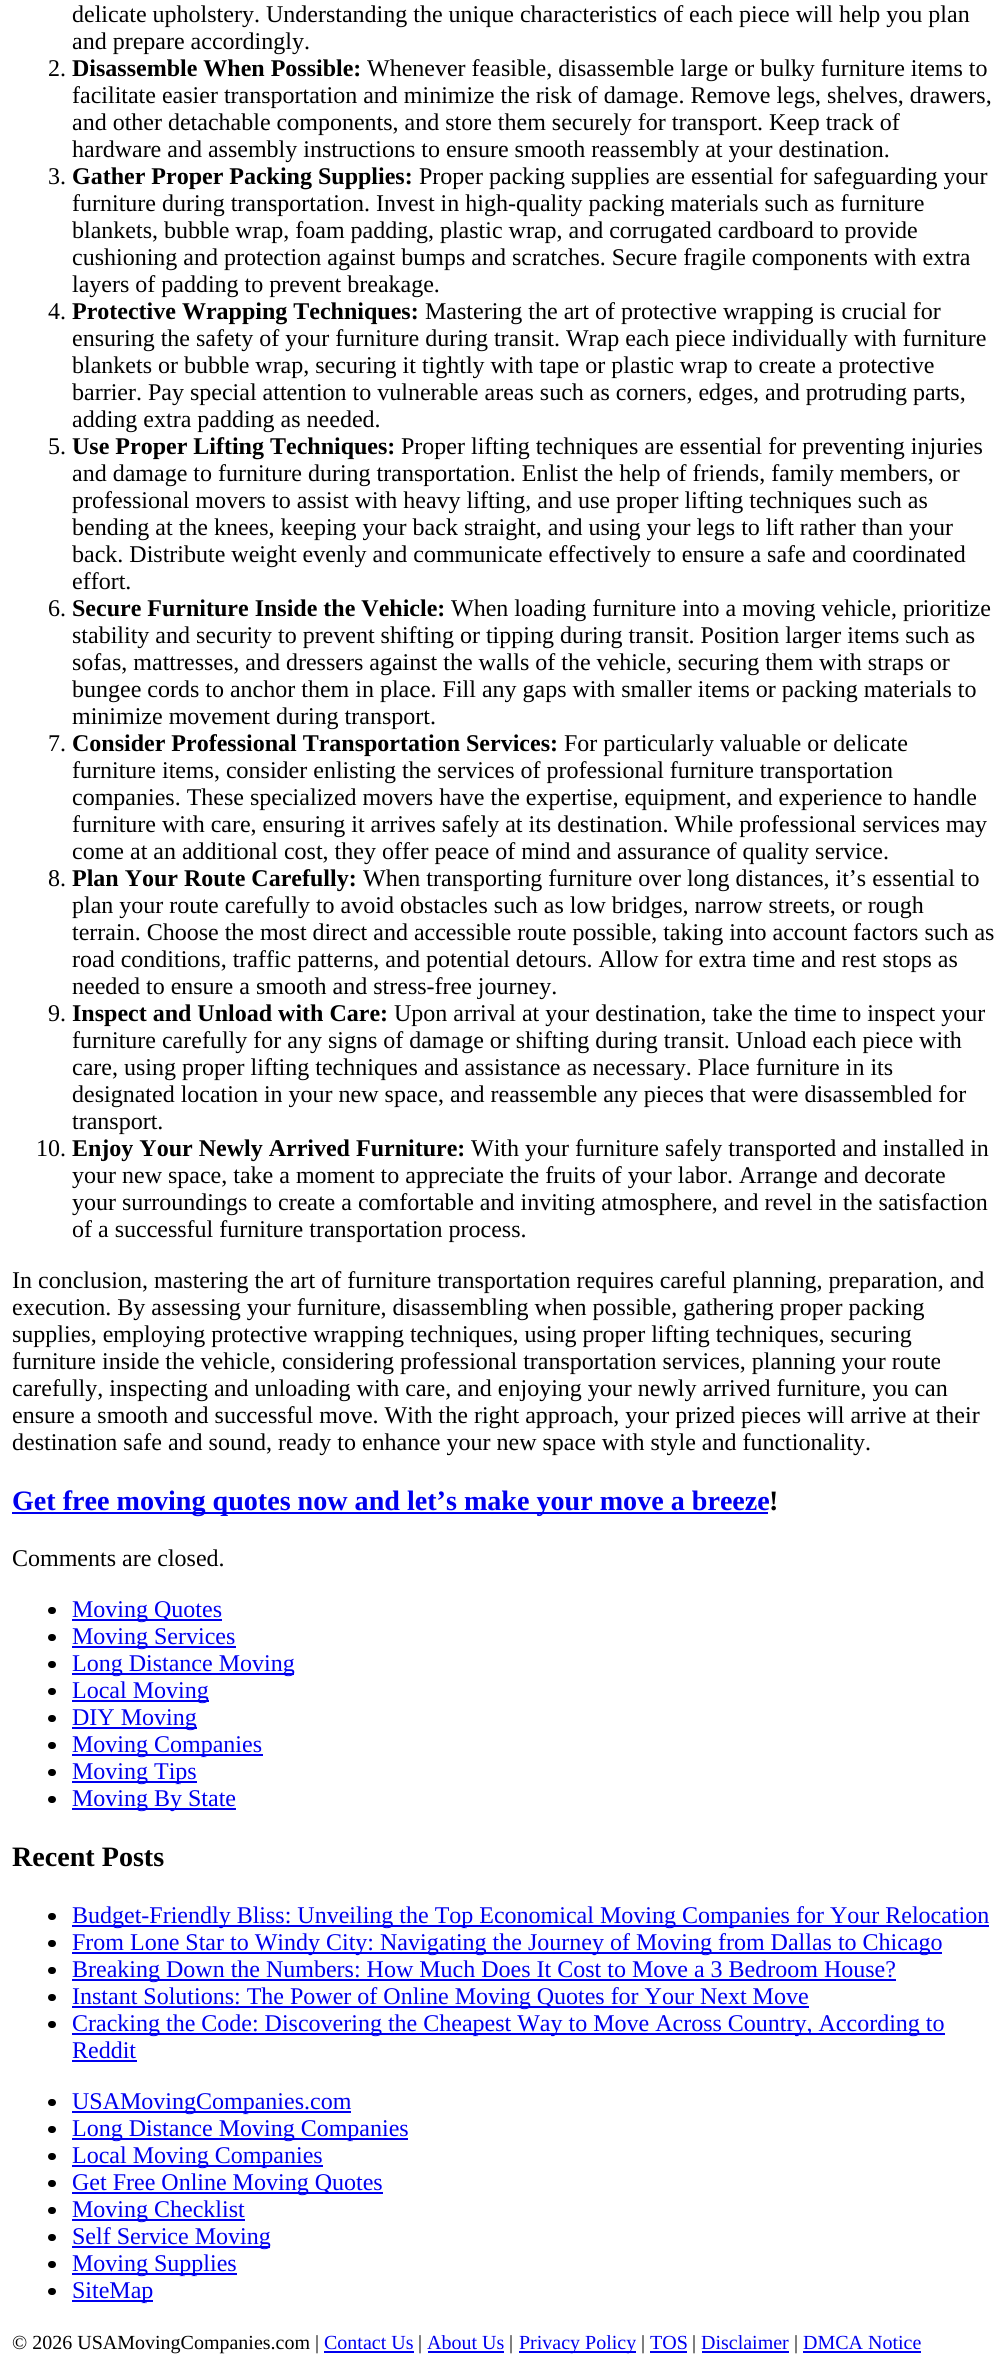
#include <cairo/cairo.h>
#include <math.h>
#include <stddef.h>

typedef struct { double x, y; const char *s; } line_t;
typedef struct { double x, y, w, h; unsigned color; } box_t;
static cairo_t *cr;

static void rgb(unsigned color)
{
	cairo_set_source_rgb(cr, (color >> 16) / 255.0, (color >> 8 & 255) / 255.0, (color & 255) / 255.0);
}

static void rrect(double x, double y, double w, double h, double r)
{
	cairo_new_sub_path(cr);
	cairo_arc(cr, x + w - r, y + h - r, r, 0, M_PI / 2);
	cairo_arc(cr, x + r, y + h - r, r, M_PI / 2, M_PI);
	cairo_arc(cr, x + r, y + r, r, M_PI, 1.5 * M_PI);
	cairo_arc(cr, x + w - r, y + r, r, 1.5 * M_PI, 2 * M_PI);
	cairo_close_path(cr);
}

int main(void) {
	cairo_surface_t *surface = cairo_image_surface_create(CAIRO_FORMAT_RGB24, 1006, 2379);
	cr = cairo_create(surface);
	cairo_font_options_t *options = cairo_font_options_create();
	cairo_font_options_set_hint_metrics(options, CAIRO_HINT_METRICS_OFF);
	cairo_font_options_set_hint_style(options, CAIRO_HINT_STYLE_NONE);
	cairo_set_font_options(cr, options);
	cairo_set_miter_limit(cr, 4);
	rgb(0xffffff);
	cairo_paint(cr);
	rgb(0x0000ee);
	cairo_rectangle(cr, 12, 1512, 756, 2);
	cairo_fill(cr);
	rgb(0x000000);
	rrect(48, 1607, 8, 7, 3.5);
	cairo_fill(cr);
	rgb(0x0000ee);
	cairo_rectangle(cr, 72, 1619, 150, 2);
	cairo_fill(cr);
	rgb(0x000000);
	rrect(48, 1634, 8, 7, 3.5);
	cairo_fill(cr);
	rgb(0x0000ee);
	cairo_rectangle(cr, 72, 1646, 164, 2);
	cairo_fill(cr);
	rgb(0x000000);
	rrect(48, 1661, 8, 7, 3.5);
	cairo_fill(cr);
	rgb(0x0000ee);
	cairo_rectangle(cr, 72, 1673, 222, 2);
	cairo_fill(cr);
	rgb(0x000000);
	rrect(48, 1688, 8, 7, 3.5);
	cairo_fill(cr);
	rgb(0x0000ee);
	cairo_rectangle(cr, 72, 1700, 137, 2);
	cairo_fill(cr);
	rgb(0x000000);
	rrect(48, 1715, 8, 7, 3.5);
	cairo_fill(cr);
	rgb(0x0000ee);
	cairo_rectangle(cr, 72, 1727, 125, 2);
	cairo_fill(cr);
	rgb(0x000000);
	rrect(48, 1742, 8, 7, 3.5);
	cairo_fill(cr);
	rgb(0x0000ee);
	cairo_rectangle(cr, 72, 1754, 191, 2);
	cairo_fill(cr);
	rgb(0x000000);
	rrect(48, 1769, 8, 7, 3.5);
	cairo_fill(cr);
	rgb(0x0000ee);
	cairo_rectangle(cr, 72, 1781, 125, 2);
	cairo_fill(cr);
	rgb(0x000000);
	rrect(48, 1796, 8, 7, 3.5);
	cairo_fill(cr);
	rgb(0x0000ee);
	cairo_rectangle(cr, 72, 1808, 164, 2);
	cairo_fill(cr);
	rgb(0x000000);
	rrect(48, 1913, 8, 7, 3.5);
	cairo_fill(cr);
	rgb(0x0000ee);
	cairo_rectangle(cr, 72, 1925, 917, 2);
	cairo_fill(cr);
	rgb(0x000000);
	rrect(48, 1940, 8, 7, 3.5);
	cairo_fill(cr);
	rgb(0x0000ee);
	cairo_rectangle(cr, 72, 1952, 870, 2);
	cairo_fill(cr);
	rgb(0x000000);
	rrect(48, 1967, 8, 7, 3.5);
	cairo_fill(cr);
	rgb(0x0000ee);
	cairo_rectangle(cr, 72, 1979, 824, 2);
	cairo_fill(cr);
	rgb(0x000000);
	rrect(48, 1994, 8, 7, 3.5);
	cairo_fill(cr);
	rgb(0x0000ee);
	cairo_rectangle(cr, 72, 2006, 737, 2);
	cairo_fill(cr);
	rgb(0x000000);
	rrect(48, 2021, 8, 7, 3.5);
	cairo_fill(cr);
	rgb(0x0000ee);
	cairo_rectangle(cr, 72, 2033, 873, 2);
	cairo_fill(cr);
	cairo_rectangle(cr, 72, 2060, 65, 2);
	cairo_fill(cr);
	rgb(0x000000);
	rrect(48, 2099, 8, 7, 3.5);
	cairo_fill(cr);
	rgb(0x0000ee);
	cairo_rectangle(cr, 72, 2111, 279, 2);
	cairo_fill(cr);
	rgb(0x000000);
	rrect(48, 2126, 8, 7, 3.5);
	cairo_fill(cr);
	rgb(0x0000ee);
	cairo_rectangle(cr, 72, 2138, 336, 2);
	cairo_fill(cr);
	rgb(0x000000);
	rrect(48, 2153, 8, 7, 3.5);
	cairo_fill(cr);
	rgb(0x0000ee);
	cairo_rectangle(cr, 72, 2165, 251, 2);
	cairo_fill(cr);
	rgb(0x000000);
	rrect(48, 2180, 8, 7, 3.5);
	cairo_fill(cr);
	rgb(0x0000ee);
	cairo_rectangle(cr, 72, 2192, 311, 2);
	cairo_fill(cr);
	rgb(0x000000);
	rrect(48, 2207, 8, 7, 3.5);
	cairo_fill(cr);
	rgb(0x0000ee);
	cairo_rectangle(cr, 72, 2219, 173, 2);
	cairo_fill(cr);
	rgb(0x000000);
	rrect(48, 2234, 8, 7, 3.5);
	cairo_fill(cr);
	rgb(0x0000ee);
	cairo_rectangle(cr, 72, 2246, 198, 2);
	cairo_fill(cr);
	rgb(0x000000);
	rrect(48, 2261, 8, 7, 3.5);
	cairo_fill(cr);
	rgb(0x0000ee);
	cairo_rectangle(cr, 72, 2273, 165, 2);
	cairo_fill(cr);
	rgb(0x000000);
	rrect(48, 2288, 8, 7, 3.5);
	cairo_fill(cr);
	{
		static const box_t items[] = {
			{72, 2300, 81, 2, 0x0000ee},
			{324, 2351, 90, 2, 0x0000ee},
			{428, 2351, 76, 2, 0x0000ee},
			{519, 2351, 117, 2, 0x0000ee},
			{650, 2351, 37, 2, 0x0000ee},
			{702, 2351, 87, 2, 0x0000ee},
			{803, 2351, 118, 2, 0x0000ee},
		};
		for (size_t i = 0; i < sizeof items / sizeof *items; i++) {
			rgb(items[i].color);
			cairo_rectangle(cr, items[i].x, items[i].y, items[i].w, items[i].h);
			cairo_fill(cr);
		}
	}
	cairo_select_font_face(cr, "Liberation Serif", CAIRO_FONT_SLANT_NORMAL, CAIRO_FONT_WEIGHT_NORMAL);
	cairo_set_font_size(cr, 24);
	rgb(0x000000);
	{
		static const line_t items[] = {
			{72, 22, "delicate upholstery. Understanding the unique characteristics of each piece will help you plan"},
			{72, 49, "and prepare accordingly."},
			{48, 76, "2."},
		};
		for (size_t i = 0; i < sizeof items / sizeof *items; i++) {
			cairo_move_to(cr, items[i].x, items[i].y);
			cairo_show_text(cr, items[i].s);
		}
	}
	cairo_select_font_face(cr, "Liberation Serif", CAIRO_FONT_SLANT_NORMAL, CAIRO_FONT_WEIGHT_BOLD);
	cairo_move_to(cr, 72, 76);
	cairo_show_text(cr, "Disassemble When Possible:");
	cairo_select_font_face(cr, "Liberation Serif", CAIRO_FONT_SLANT_NORMAL, CAIRO_FONT_WEIGHT_NORMAL);
	{
		static const line_t items[] = {
			{367, 76, "Whenever feasible, disassemble large or bulky furniture items to"},
			{72, 103, "facilitate easier transportation and minimize the risk of damage. Remove legs, shelves, drawers,"},
			{72, 130, "and other detachable components, and store them securely for transport. Keep track of"},
			{72, 157, "hardware and assembly instructions to ensure smooth reassembly at your destination."},
			{48, 184, "3."},
		};
		for (size_t i = 0; i < sizeof items / sizeof *items; i++) {
			cairo_move_to(cr, items[i].x, items[i].y);
			cairo_show_text(cr, items[i].s);
		}
	}
	cairo_select_font_face(cr, "Liberation Serif", CAIRO_FONT_SLANT_NORMAL, CAIRO_FONT_WEIGHT_BOLD);
	cairo_move_to(cr, 72, 184);
	cairo_show_text(cr, "Gather Proper Packing Supplies:");
	cairo_select_font_face(cr, "Liberation Serif", CAIRO_FONT_SLANT_NORMAL, CAIRO_FONT_WEIGHT_NORMAL);
	{
		static const line_t items[] = {
			{419, 184, "Proper packing supplies are essential for safeguarding your"},
			{72, 211, "furniture during transportation. Invest in high-quality packing materials such as furniture"},
			{72, 238, "blankets, bubble wrap, foam padding, plastic wrap, and corrugated cardboard to provide"},
			{72, 265, "cushioning and protection against bumps and scratches. Secure fragile components with extra"},
			{72, 292, "layers of padding to prevent breakage."},
			{48, 319, "4."},
		};
		for (size_t i = 0; i < sizeof items / sizeof *items; i++) {
			cairo_move_to(cr, items[i].x, items[i].y);
			cairo_show_text(cr, items[i].s);
		}
	}
	cairo_select_font_face(cr, "Liberation Serif", CAIRO_FONT_SLANT_NORMAL, CAIRO_FONT_WEIGHT_BOLD);
	cairo_move_to(cr, 72, 319);
	cairo_show_text(cr, "Protective Wrapping Techniques:");
	cairo_select_font_face(cr, "Liberation Serif", CAIRO_FONT_SLANT_NORMAL, CAIRO_FONT_WEIGHT_NORMAL);
	{
		static const line_t items[] = {
			{425, 319, "Mastering the art of protective wrapping is crucial for"},
			{72, 346, "ensuring the safety of your furniture during transit. Wrap each piece individually with furniture"},
			{72, 373, "blankets or bubble wrap, securing it tightly with tape or plastic wrap to create a protective"},
			{72, 400, "barrier. Pay special attention to vulnerable areas such as corners, edges, and protruding parts,"},
			{72, 427, "adding extra padding as needed."},
			{48, 454, "5."},
		};
		for (size_t i = 0; i < sizeof items / sizeof *items; i++) {
			cairo_move_to(cr, items[i].x, items[i].y);
			cairo_show_text(cr, items[i].s);
		}
	}
	cairo_select_font_face(cr, "Liberation Serif", CAIRO_FONT_SLANT_NORMAL, CAIRO_FONT_WEIGHT_BOLD);
	cairo_move_to(cr, 72, 454);
	cairo_show_text(cr, "Use Proper Lifting Techniques:");
	cairo_select_font_face(cr, "Liberation Serif", CAIRO_FONT_SLANT_NORMAL, CAIRO_FONT_WEIGHT_NORMAL);
	{
		static const line_t items[] = {
			{401, 454, "Proper lifting techniques are essential for preventing injuries"},
			{72, 481, "and damage to furniture during transportation. Enlist the help of friends, family members, or"},
			{72, 508, "professional movers to assist with heavy lifting, and use proper lifting techniques such as"},
			{72, 535, "bending at the knees, keeping your back straight, and using your legs to lift rather than your"},
			{72, 562, "back. Distribute weight evenly and communicate effectively to ensure a safe and coordinated"},
			{72, 589, "effort."},
			{48, 616, "6."},
		};
		for (size_t i = 0; i < sizeof items / sizeof *items; i++) {
			cairo_move_to(cr, items[i].x, items[i].y);
			cairo_show_text(cr, items[i].s);
		}
	}
	cairo_select_font_face(cr, "Liberation Serif", CAIRO_FONT_SLANT_NORMAL, CAIRO_FONT_WEIGHT_BOLD);
	cairo_move_to(cr, 72, 616);
	cairo_show_text(cr, "Secure Furniture Inside the Vehicle:");
	cairo_select_font_face(cr, "Liberation Serif", CAIRO_FONT_SLANT_NORMAL, CAIRO_FONT_WEIGHT_NORMAL);
	{
		static const line_t items[] = {
			{451, 616, "When loading furniture into a moving vehicle, prioritize"},
			{72, 643, "stability and security to prevent shifting or tipping during transit. Position larger items such as"},
			{72, 670, "sofas, mattresses, and dressers against the walls of the vehicle, securing them with straps or"},
			{72, 697, "bungee cords to anchor them in place. Fill any gaps with smaller items or packing materials to"},
			{72, 724, "minimize movement during transport."},
			{48, 751, "7."},
		};
		for (size_t i = 0; i < sizeof items / sizeof *items; i++) {
			cairo_move_to(cr, items[i].x, items[i].y);
			cairo_show_text(cr, items[i].s);
		}
	}
	cairo_select_font_face(cr, "Liberation Serif", CAIRO_FONT_SLANT_NORMAL, CAIRO_FONT_WEIGHT_BOLD);
	cairo_move_to(cr, 72, 751);
	cairo_show_text(cr, "Consider Professional Transportation Services:");
	cairo_select_font_face(cr, "Liberation Serif", CAIRO_FONT_SLANT_NORMAL, CAIRO_FONT_WEIGHT_NORMAL);
	{
		static const line_t items[] = {
			{564, 751, "For particularly valuable or delicate"},
			{72, 778, "furniture items, consider enlisting the services of professional furniture transportation"},
			{72, 805, "companies. These specialized movers have the expertise, equipment, and experience to handle"},
			{72, 832, "furniture with care, ensuring it arrives safely at its destination. While professional services may"},
			{72, 859, "come at an additional cost, they offer peace of mind and assurance of quality service."},
			{48, 886, "8."},
		};
		for (size_t i = 0; i < sizeof items / sizeof *items; i++) {
			cairo_move_to(cr, items[i].x, items[i].y);
			cairo_show_text(cr, items[i].s);
		}
	}
	cairo_select_font_face(cr, "Liberation Serif", CAIRO_FONT_SLANT_NORMAL, CAIRO_FONT_WEIGHT_BOLD);
	cairo_move_to(cr, 72, 886);
	cairo_show_text(cr, "Plan Your Route Carefully:");
	cairo_select_font_face(cr, "Liberation Serif", CAIRO_FONT_SLANT_NORMAL, CAIRO_FONT_WEIGHT_NORMAL);
	{
		static const line_t items[] = {
			{363, 886, "When transporting furniture over long distances, it’s essential to"},
			{72, 913, "plan your route carefully to avoid obstacles such as low bridges, narrow streets, or rough"},
			{72, 940, "terrain. Choose the most direct and accessible route possible, taking into account factors such as"},
			{72, 967, "road conditions, traffic patterns, and potential detours. Allow for extra time and rest stops as"},
			{72, 994, "needed to ensure a smooth and stress-free journey."},
			{48, 1021, "9."},
		};
		for (size_t i = 0; i < sizeof items / sizeof *items; i++) {
			cairo_move_to(cr, items[i].x, items[i].y);
			cairo_show_text(cr, items[i].s);
		}
	}
	cairo_select_font_face(cr, "Liberation Serif", CAIRO_FONT_SLANT_NORMAL, CAIRO_FONT_WEIGHT_BOLD);
	cairo_move_to(cr, 72, 1021);
	cairo_show_text(cr, "Inspect and Unload with Care:");
	cairo_select_font_face(cr, "Liberation Serif", CAIRO_FONT_SLANT_NORMAL, CAIRO_FONT_WEIGHT_NORMAL);
	{
		static const line_t items[] = {
			{394, 1021, "Upon arrival at your destination, take the time to inspect your"},
			{72, 1048, "furniture carefully for any signs of damage or shifting during transit. Unload each piece with"},
			{72, 1075, "care, using proper lifting techniques and assistance as necessary. Place furniture in its"},
			{72, 1102, "designated location in your new space, and reassemble any pieces that were disassembled for"},
			{72, 1129, "transport."},
			{36, 1156, "10."},
		};
		for (size_t i = 0; i < sizeof items / sizeof *items; i++) {
			cairo_move_to(cr, items[i].x, items[i].y);
			cairo_show_text(cr, items[i].s);
		}
	}
	cairo_select_font_face(cr, "Liberation Serif", CAIRO_FONT_SLANT_NORMAL, CAIRO_FONT_WEIGHT_BOLD);
	cairo_move_to(cr, 72, 1156);
	cairo_show_text(cr, "Enjoy Your Newly Arrived Furniture:");
	cairo_select_font_face(cr, "Liberation Serif", CAIRO_FONT_SLANT_NORMAL, CAIRO_FONT_WEIGHT_NORMAL);
	{
		static const line_t items[] = {
			{471, 1156, "With your furniture safely transported and installed in"},
			{72, 1183, "your new space, take a moment to appreciate the fruits of your labor. Arrange and decorate"},
			{72, 1210, "your surroundings to create a comfortable and inviting atmosphere, and revel in the satisfaction"},
			{72, 1237, "of a successful furniture transportation process."},
			{12, 1288, "In conclusion, mastering the art of furniture transportation requires careful planning, preparation, and"},
			{12, 1315, "execution. By assessing your furniture, disassembling when possible, gathering proper packing"},
			{12, 1342, "supplies, employing protective wrapping techniques, using proper lifting techniques, securing"},
			{12, 1369, "furniture inside the vehicle, considering professional transportation services, planning your route"},
			{12, 1396, "carefully, inspecting and unloading with care, and enjoying your newly arrived furniture, you can"},
			{12, 1423, "ensure a smooth and successful move. With the right approach, your prized pieces will arrive at their"},
			{12, 1450, "destination safe and sound, ready to enhance your new space with style and functionality."},
		};
		for (size_t i = 0; i < sizeof items / sizeof *items; i++) {
			cairo_move_to(cr, items[i].x, items[i].y);
			cairo_show_text(cr, items[i].s);
		}
	}
	cairo_select_font_face(cr, "Liberation Serif", CAIRO_FONT_SLANT_NORMAL, CAIRO_FONT_WEIGHT_BOLD);
	cairo_set_font_size(cr, 28.1);
	rgb(0x0000ee);
	cairo_move_to(cr, 12, 1510);
	cairo_show_text(cr, "Get free moving quotes now and let’s make your move a breeze");
	rgb(0x000000);
	cairo_move_to(cr, 769, 1510);
	cairo_show_text(cr, "!");
	cairo_select_font_face(cr, "Liberation Serif", CAIRO_FONT_SLANT_NORMAL, CAIRO_FONT_WEIGHT_NORMAL);
	cairo_set_font_size(cr, 24);
	cairo_move_to(cr, 12, 1566);
	cairo_show_text(cr, "Comments are closed.");
	rgb(0x0000ee);
	{
		static const line_t items[] = {
			{72, 1617, "Moving Quotes"},
			{72, 1644, "Moving Services"},
			{72, 1671, "Long Distance Moving"},
			{72, 1698, "Local Moving"},
			{72, 1725, "DIY Moving"},
			{72, 1752, "Moving Companies"},
			{72, 1779, "Moving Tips"},
			{72, 1806, "Moving By State"},
		};
		for (size_t i = 0; i < sizeof items / sizeof *items; i++) {
			cairo_move_to(cr, items[i].x, items[i].y);
			cairo_show_text(cr, items[i].s);
		}
	}
	cairo_select_font_face(cr, "Liberation Serif", CAIRO_FONT_SLANT_NORMAL, CAIRO_FONT_WEIGHT_BOLD);
	cairo_set_font_size(cr, 28.1);
	rgb(0x000000);
	cairo_move_to(cr, 12, 1866);
	cairo_show_text(cr, "Recent Posts");
	cairo_select_font_face(cr, "Liberation Serif", CAIRO_FONT_SLANT_NORMAL, CAIRO_FONT_WEIGHT_NORMAL);
	cairo_set_font_size(cr, 24);
	rgb(0x0000ee);
	{
		static const line_t items[] = {
			{72, 1923, "Budget-Friendly Bliss: Unveiling the Top Economical Moving Companies for Your Relocation"},
			{72, 1950, "From Lone Star to Windy City: Navigating the Journey of Moving from Dallas to Chicago"},
			{72, 1977, "Breaking Down the Numbers: How Much Does It Cost to Move a 3 Bedroom House?"},
			{72, 2004, "Instant Solutions: The Power of Online Moving Quotes for Your Next Move"},
			{72, 2031, "Cracking the Code: Discovering the Cheapest Way to Move Across Country, According to"},
			{72, 2058, "Reddit"},
			{72, 2109, "USAMovingCompanies.com"},
			{72, 2136, "Long Distance Moving Companies"},
			{72, 2163, "Local Moving Companies"},
			{72, 2190, "Get Free Online Moving Quotes"},
			{72, 2217, "Moving Checklist"},
			{72, 2244, "Self Service Moving"},
			{72, 2271, "Moving Supplies"},
			{72, 2298, "SiteMap"},
		};
		for (size_t i = 0; i < sizeof items / sizeof *items; i++) {
			cairo_move_to(cr, items[i].x, items[i].y);
			cairo_show_text(cr, items[i].s);
		}
	}
	cairo_set_font_size(cr, 20);
	rgb(0x000000);
	cairo_move_to(cr, 12, 2349);
	cairo_show_text(cr, "© 2026 USAMovingCompanies.com |");
	rgb(0x0000ee);
	cairo_move_to(cr, 324, 2349);
	cairo_show_text(cr, "Contact Us");
	rgb(0x000000);
	cairo_move_to(cr, 418, 2349);
	cairo_show_text(cr, "|");
	rgb(0x0000ee);
	cairo_move_to(cr, 427, 2349);
	cairo_show_text(cr, "About Us");
	rgb(0x000000);
	cairo_move_to(cr, 509, 2349);
	cairo_show_text(cr, "|");
	rgb(0x0000ee);
	cairo_move_to(cr, 519, 2349);
	cairo_show_text(cr, "Privacy Policy");
	rgb(0x000000);
	cairo_move_to(cr, 641, 2349);
	cairo_show_text(cr, "|");
	rgb(0x0000ee);
	cairo_move_to(cr, 650, 2349);
	cairo_show_text(cr, "TOS");
	rgb(0x000000);
	cairo_move_to(cr, 692, 2349);
	cairo_show_text(cr, "|");
	rgb(0x0000ee);
	cairo_move_to(cr, 701, 2349);
	cairo_show_text(cr, "Disclaimer");
	rgb(0x000000);
	cairo_move_to(cr, 794, 2349);
	cairo_show_text(cr, "|");
	rgb(0x0000ee);
	cairo_move_to(cr, 803, 2349);
	cairo_show_text(cr, "DMCA Notice");
	cairo_surface_write_to_png(surface, "page.png");
	cairo_font_options_destroy(options);
	cairo_destroy(cr);
	cairo_surface_destroy(surface);
	return 0;
}
